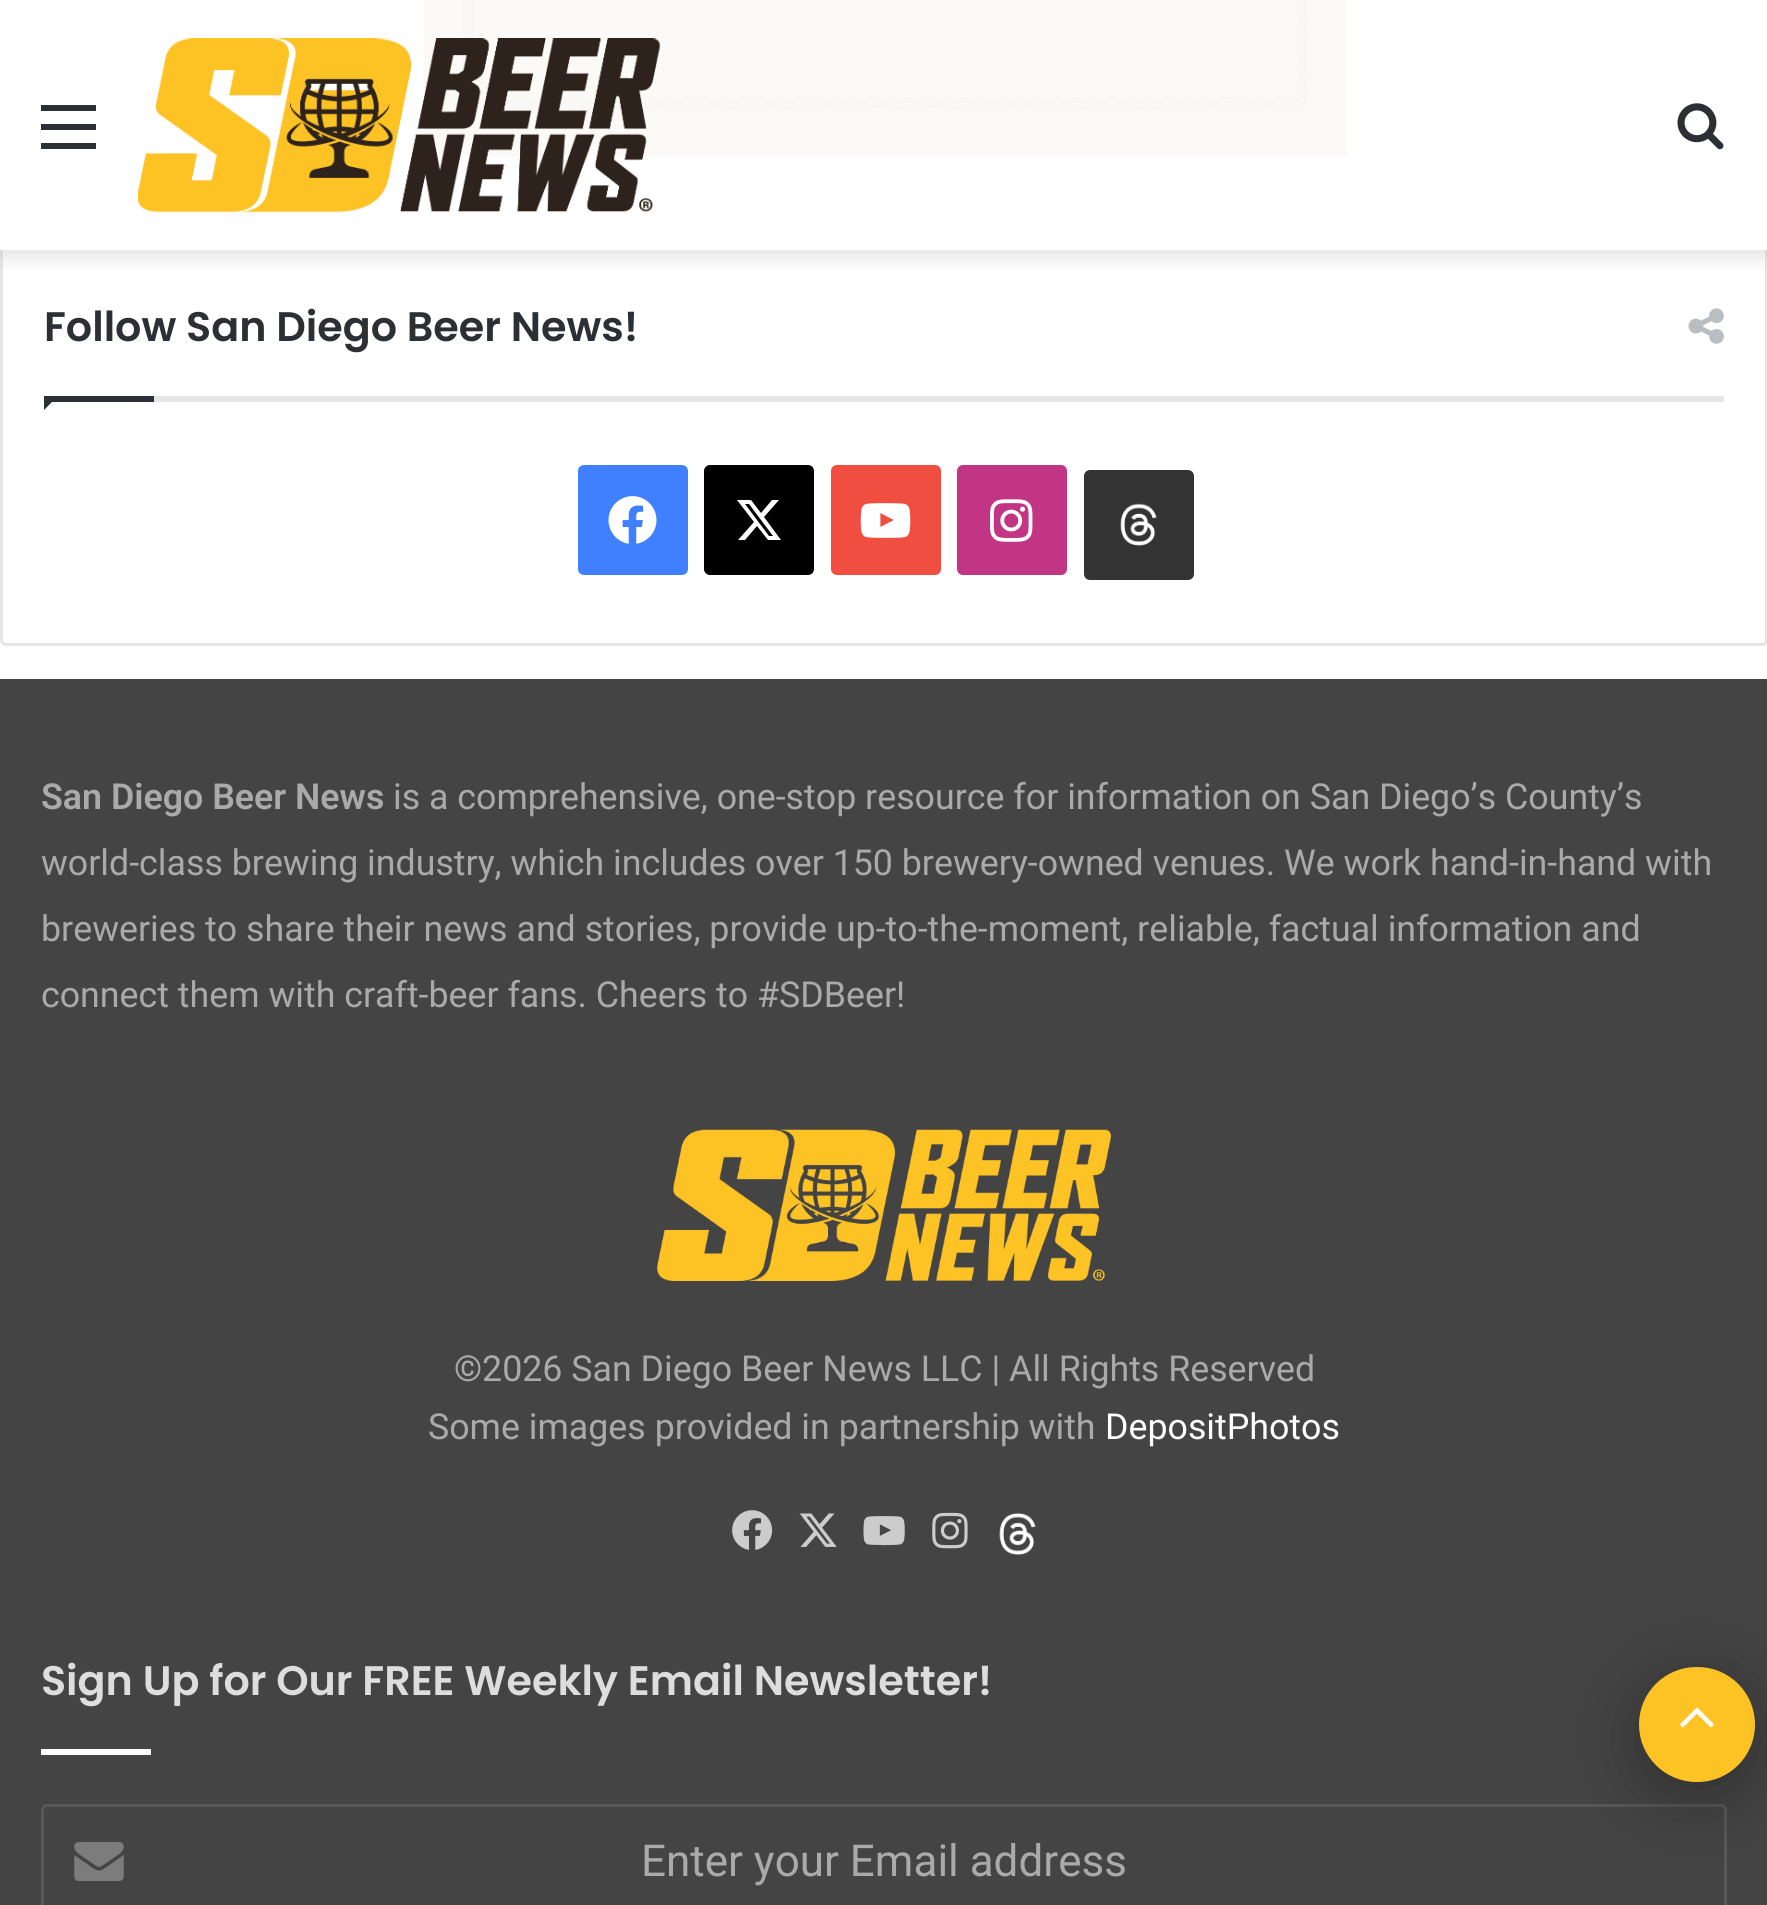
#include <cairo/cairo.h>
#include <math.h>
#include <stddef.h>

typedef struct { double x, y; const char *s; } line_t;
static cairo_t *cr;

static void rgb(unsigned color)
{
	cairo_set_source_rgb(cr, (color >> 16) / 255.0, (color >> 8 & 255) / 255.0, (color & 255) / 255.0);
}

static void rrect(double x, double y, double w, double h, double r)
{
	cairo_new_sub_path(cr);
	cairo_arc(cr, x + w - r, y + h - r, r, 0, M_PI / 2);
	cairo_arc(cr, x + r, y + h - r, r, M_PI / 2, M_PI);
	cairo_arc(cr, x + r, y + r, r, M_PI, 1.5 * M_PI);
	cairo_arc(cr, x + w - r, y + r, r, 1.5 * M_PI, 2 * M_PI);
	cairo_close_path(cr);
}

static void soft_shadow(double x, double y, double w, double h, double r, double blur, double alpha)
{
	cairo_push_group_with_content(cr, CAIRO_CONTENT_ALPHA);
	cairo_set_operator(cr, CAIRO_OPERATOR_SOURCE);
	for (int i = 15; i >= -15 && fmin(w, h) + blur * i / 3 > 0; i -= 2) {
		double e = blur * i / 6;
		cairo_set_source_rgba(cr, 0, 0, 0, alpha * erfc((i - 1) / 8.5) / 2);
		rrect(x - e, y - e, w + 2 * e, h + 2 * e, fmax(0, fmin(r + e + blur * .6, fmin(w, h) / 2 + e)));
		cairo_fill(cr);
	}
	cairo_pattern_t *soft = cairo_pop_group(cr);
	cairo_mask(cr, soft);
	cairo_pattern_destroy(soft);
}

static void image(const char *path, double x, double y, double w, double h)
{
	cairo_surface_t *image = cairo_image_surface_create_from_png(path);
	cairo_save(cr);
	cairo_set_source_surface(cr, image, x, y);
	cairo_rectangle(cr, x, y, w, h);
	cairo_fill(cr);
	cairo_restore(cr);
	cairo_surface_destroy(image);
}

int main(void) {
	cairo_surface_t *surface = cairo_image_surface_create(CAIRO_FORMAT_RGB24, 1767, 1905);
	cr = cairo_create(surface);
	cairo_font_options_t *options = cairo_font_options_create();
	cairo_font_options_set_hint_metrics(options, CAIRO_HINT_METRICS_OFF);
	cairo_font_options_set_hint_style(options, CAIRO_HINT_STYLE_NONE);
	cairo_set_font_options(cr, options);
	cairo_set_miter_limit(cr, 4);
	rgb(0xffffff);
	cairo_paint(cr);
	image("img/3.png", 423, 0, 925, 157);
	rrect(1.5, 240.5, 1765, 404, 4.5);
	rgb(0xe6e6e6);
	cairo_set_line_width(cr, 3);
	cairo_stroke(cr);
	cairo_save(cr);
	cairo_rectangle(cr, 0, 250, 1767, 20);
	cairo_clip(cr);
	rgb(0x636363);
	soft_shadow(0, 6, 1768, 250, 0, 11, 0.2);
	cairo_restore(cr);
	cairo_set_source_rgba(cr, 1, 1, 1, 0.95);
	cairo_rectangle(cr, 0, 0, 1767, 250);
	cairo_fill(cr);
	rgb(0x2c2f34);
	cairo_rectangle(cr, 41, 124, 55, 6);
	cairo_fill(cr);
	cairo_rectangle(cr, 41, 105, 55, 6);
	cairo_fill(cr);
	cairo_rectangle(cr, 41, 143, 55, 6);
	cairo_fill(cr);
	image("img/1.png", 138, 38, 523, 175);
	image("img/2.png", 1677, 103, 47, 47);
	rgb(0xe6e6e6);
	cairo_rectangle(cr, 154, 396, 1570, 6);
	cairo_fill(cr);
	image("img/4.png", 1688, 308, 36, 36);
	rgb(0x2c2f34);
	cairo_new_path(cr);
	cairo_move_to(cr, 44, 396);
	cairo_line_to(cr, 58, 396);
	cairo_line_to(cr, 44, 410);
	cairo_close_path(cr);
	cairo_fill(cr);
	cairo_rectangle(cr, 44, 396, 110, 6);
	cairo_fill(cr);
	rgb(0x4080ff);
	rrect(578, 465, 110, 110, 6);
	cairo_fill(cr);
	image("img/5.png", 608, 496, 49, 48);
	rgb(0x000000);
	rrect(704, 465, 110, 110, 6);
	cairo_fill(cr);
	rgb(0xffffff);
	cairo_new_path(cr);
	cairo_move_to(cr, 772, 500);
	cairo_line_to(cr, 779, 500);
	cairo_line_to(cr, 764, 517);
	cairo_line_to(cr, 781, 540);
	cairo_line_to(cr, 768, 540);
	cairo_line_to(cr, 757, 526);
	cairo_line_to(cr, 745, 540);
	cairo_line_to(cr, 738, 540);
	cairo_line_to(cr, 754, 522);
	cairo_line_to(cr, 737, 500);
	cairo_line_to(cr, 751, 500);
	cairo_line_to(cr, 761, 513);
	cairo_close_path(cr);
	cairo_move_to(cr, 769, 536);
	cairo_line_to(cr, 773, 536);
	cairo_line_to(cr, 749, 504);
	cairo_line_to(cr, 745, 504);
	cairo_close_path(cr);
	cairo_fill(cr);
	rgb(0xef4e41);
	rrect(831, 465, 110, 110, 6);
	cairo_fill(cr);
	image("img/6.png", 860, 503, 51, 35);
	rgb(0xc13584);
	rrect(957, 465, 110, 110, 6);
	cairo_fill(cr);
	image("img/7.png", 990, 499, 43, 43);
	rgb(0x333333);
	rrect(1084, 470, 110, 110, 6);
	cairo_fill(cr);
	image("img/8.png", 1120, 503, 37, 43);
	rgb(0x444444);
	cairo_rectangle(cr, 0, 679, 1767, 1226);
	cairo_fill(cr);
	image("img/9.png", 657, 1129, 454, 152);
	image("img/10.png", 732, 1510, 41, 40);
	image("img/11.png", 799, 1513, 38, 34);
	image("img/12.png", 863, 1516, 42, 30);
	image("img/13.png", 932, 1512, 36, 37);
	image("img/14.png", 999, 1513, 37, 42);
	rgb(0xffffff);
	cairo_rectangle(cr, 41, 1749, 110, 6);
	cairo_fill(cr);
	rrect(42.5, 1805.5, 1683, 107, 4.5);
	rgb(0x575757);
	cairo_stroke(cr);
	image("img/15.png", 74, 1842, 50, 39);
	rgb(0x000000);
	soft_shadow(1639, 1680, 116, 116, 58, 34.5, 0.3);
	rgb(0xfdc224);
	rrect(1639, 1667, 116, 115, 57.5);
	cairo_fill(cr);
	image("img/16.png", 1680, 1707, 34, 21);
	cairo_select_font_face(cr, "Poppins SemiBold", CAIRO_FONT_SLANT_NORMAL, CAIRO_FONT_WEIGHT_NORMAL);
	cairo_set_font_size(cr, 41.25);
	rgb(0x2c2f34);
	cairo_move_to(cr, 44, 341);
	cairo_show_text(cr, "Follow San Diego Beer News!");
	cairo_select_font_face(cr, "Roboto SemiBold", CAIRO_FONT_SLANT_NORMAL, CAIRO_FONT_WEIGHT_NORMAL);
	cairo_set_font_size(cr, 35.75);
	rgb(0xaaaaaa);
	cairo_move_to(cr, 41, 809);
	cairo_show_text(cr, "San Diego Beer News");
	cairo_select_font_face(cr, "Roboto", CAIRO_FONT_SLANT_NORMAL, CAIRO_FONT_WEIGHT_NORMAL);
	{
		static const line_t items[] = {
			{393, 809, "is a comprehensive, one-stop resource for information on San Diego’s County’s"},
			{41, 875, "world-class brewing industry, which includes over 150 brewery-owned venues. We work hand-in-hand with"},
			{41, 941, "breweries to share their news and stories, provide up-to-the-moment, reliable, factual information and"},
			{41, 1007, "connect them with craft-beer fans. Cheers to #SDBeer!"},
			{454, 1381, "©2026 San Diego Beer News LLC | All Rights Reserved"},
			{428, 1439, "Some images provided in partnership with"},
		};
		for (size_t i = 0; i < sizeof items / sizeof *items; i++) {
			cairo_move_to(cr, items[i].x, items[i].y);
			cairo_show_text(cr, items[i].s);
		}
	}
	rgb(0xffffff);
	cairo_move_to(cr, 1105, 1439);
	cairo_show_text(cr, "DepositPhotos");
	cairo_select_font_face(cr, "Poppins SemiBold", CAIRO_FONT_SLANT_NORMAL, CAIRO_FONT_WEIGHT_NORMAL);
	cairo_set_font_size(cr, 41.25);
	rgb(0xdddddd);
	cairo_move_to(cr, 41, 1695);
	cairo_show_text(cr, "Sign Up for Our FREE Weekly Email Newsletter!");
	cairo_select_font_face(cr, "Roboto", CAIRO_FONT_SLANT_NORMAL, CAIRO_FONT_WEIGHT_NORMAL);
	cairo_set_font_size(cr, 44);
	rgb(0xaaaaaa);
	cairo_move_to(cr, 641, 1876);
	cairo_show_text(cr, "Enter your Email address");
	cairo_surface_write_to_png(surface, "page.png");
	cairo_font_options_destroy(options);
	cairo_destroy(cr);
	cairo_surface_destroy(surface);
	return 0;
}
